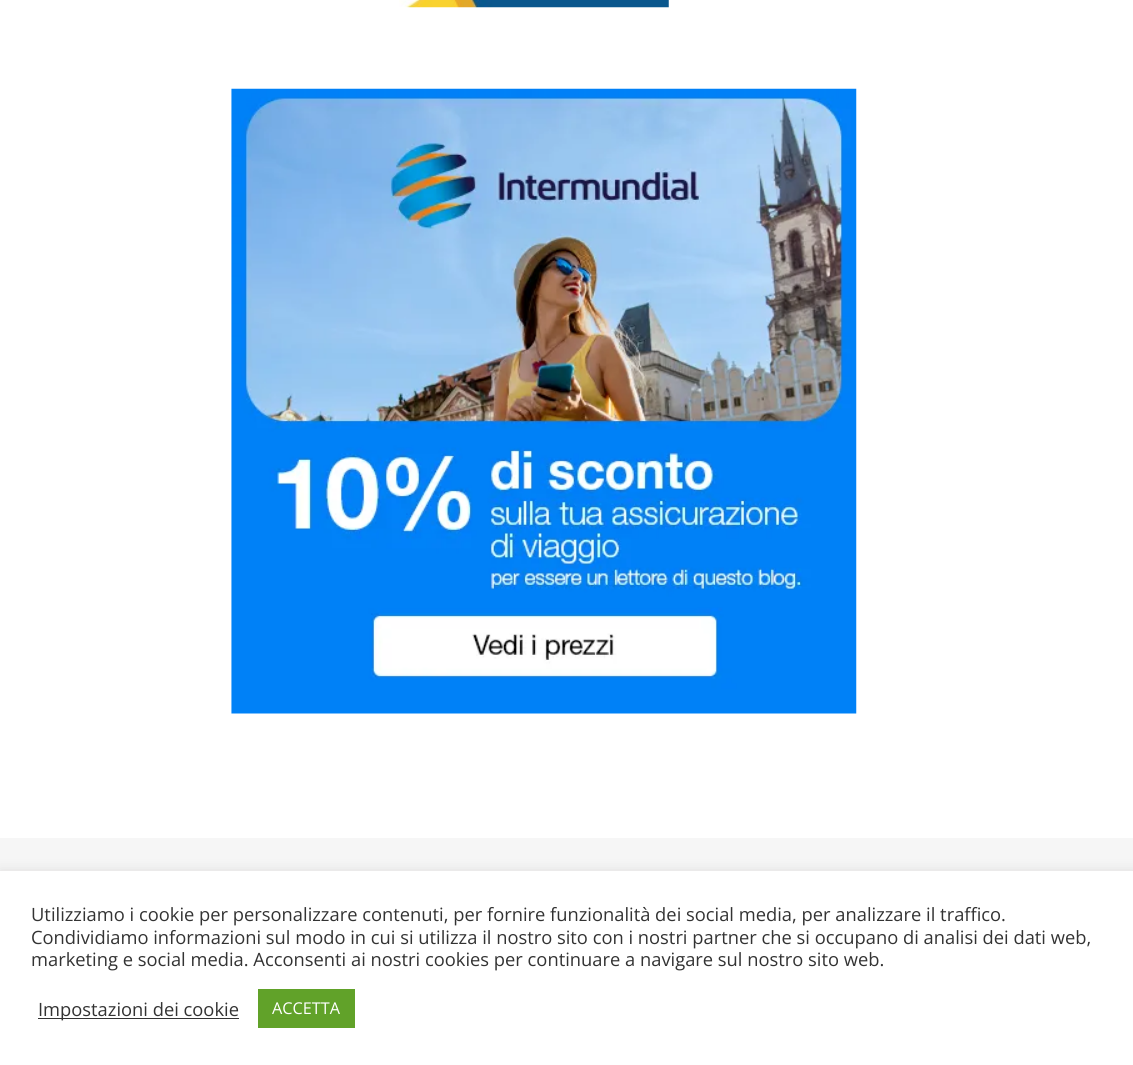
#include <cairo/cairo.h>
#include <math.h>
#include <stddef.h>

typedef struct { double x, y; const char *s; } line_t;
typedef struct { double x, y, w, h; unsigned color; } box_t;
static cairo_t *cr;

static void rgb(unsigned color)
{
	cairo_set_source_rgb(cr, (color >> 16) / 255.0, (color >> 8 & 255) / 255.0, (color & 255) / 255.0);
}

static void rrect(double x, double y, double w, double h, double r)
{
	cairo_new_sub_path(cr);
	cairo_arc(cr, x + w - r, y + h - r, r, 0, M_PI / 2);
	cairo_arc(cr, x + r, y + h - r, r, M_PI / 2, M_PI);
	cairo_arc(cr, x + r, y + r, r, M_PI, 1.5 * M_PI);
	cairo_arc(cr, x + w - r, y + r, r, 1.5 * M_PI, 2 * M_PI);
	cairo_close_path(cr);
}

static void soft_shadow(double x, double y, double w, double h, double r, double blur, double alpha)
{
	cairo_push_group_with_content(cr, CAIRO_CONTENT_ALPHA);
	cairo_set_operator(cr, CAIRO_OPERATOR_SOURCE);
	for (int i = 15; i >= -15 && fmin(w, h) + blur * i / 3 > 0; i -= 2) {
		double e = blur * i / 6;
		cairo_set_source_rgba(cr, 0, 0, 0, alpha * erfc((i - 1) / 8.5) / 2);
		rrect(x - e, y - e, w + 2 * e, h + 2 * e, fmax(0, fmin(r + e + blur * .6, fmin(w, h) / 2 + e)));
		cairo_fill(cr);
	}
	cairo_pattern_t *soft = cairo_pop_group(cr);
	cairo_mask(cr, soft);
	cairo_pattern_destroy(soft);
}

static void image(const char *path, double x, double y, double w, double h)
{
	cairo_surface_t *image = cairo_image_surface_create_from_png(path);
	cairo_save(cr);
	cairo_set_source_surface(cr, image, x, y);
	cairo_rectangle(cr, x, y, w, h);
	cairo_fill(cr);
	cairo_restore(cr);
	cairo_surface_destroy(image);
}

int main(void) {
	cairo_surface_t *surface = cairo_image_surface_create(CAIRO_FORMAT_RGB24, 1133, 1065);
	cr = cairo_create(surface);
	cairo_font_options_t *options = cairo_font_options_create();
	cairo_font_options_set_hint_metrics(options, CAIRO_HINT_METRICS_OFF);
	cairo_font_options_set_hint_style(options, CAIRO_HINT_STYLE_NONE);
	cairo_set_font_options(cr, options);
	cairo_set_miter_limit(cr, 4);
	rgb(0xffffff);
	cairo_paint(cr);
	image("img/1.png", 399, 0, 270, 8);
	image("img/2.png", 231, 88, 626, 626);
	rgb(0xf6f6f6);
	cairo_rectangle(cr, 0, 838, 1133, 33);
	cairo_fill(cr);
	rgb(0xacabab);
	soft_shadow(0, 870, 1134, 194, 0, 6, 0.3);
	{
		static const box_t items[] = {
			{0, 871, 1133, 194, 0xffffff},
			{38, 1018, 201, 1, 0x333333},
			{258, 989, 97, 39, 0x61a229},
		};
		for (size_t i = 0; i < sizeof items / sizeof *items; i++) {
			rgb(items[i].color);
			cairo_rectangle(cr, items[i].x, items[i].y, items[i].w, items[i].h);
			cairo_fill(cr);
		}
	}
	cairo_select_font_face(cr, "Open Sans", CAIRO_FONT_SLANT_NORMAL, CAIRO_FONT_WEIGHT_NORMAL);
	cairo_set_font_size(cr, 18.33);
	rgb(0x333333);
	{
		static const line_t items[] = {
			{31, 921, "Utilizziamo i cookie per personalizzare contenuti, per fornire funzionalità dei social media, per analizzare il traffico."},
			{31, 944, "Condividiamo informazioni sul modo in cui si utilizza il nostro sito con i nostri partner che si occupano di analisi dei dati web,"},
			{31, 966, "marketing e social media. Acconsenti ai nostri cookies per continuare a navigare sul nostro sito web."},
			{38, 1016, "Impostazioni dei cookie"},
		};
		for (size_t i = 0; i < sizeof items / sizeof *items; i++) {
			cairo_move_to(cr, items[i].x, items[i].y);
			cairo_show_text(cr, items[i].s);
		}
	}
	cairo_set_font_size(cr, 16.25);
	rgb(0xffffff);
	cairo_move_to(cr, 272, 1014);
	cairo_show_text(cr, "ACCETTA");
	cairo_surface_write_to_png(surface, "page.png");
	cairo_font_options_destroy(options);
	cairo_destroy(cr);
	cairo_surface_destroy(surface);
	return 0;
}
